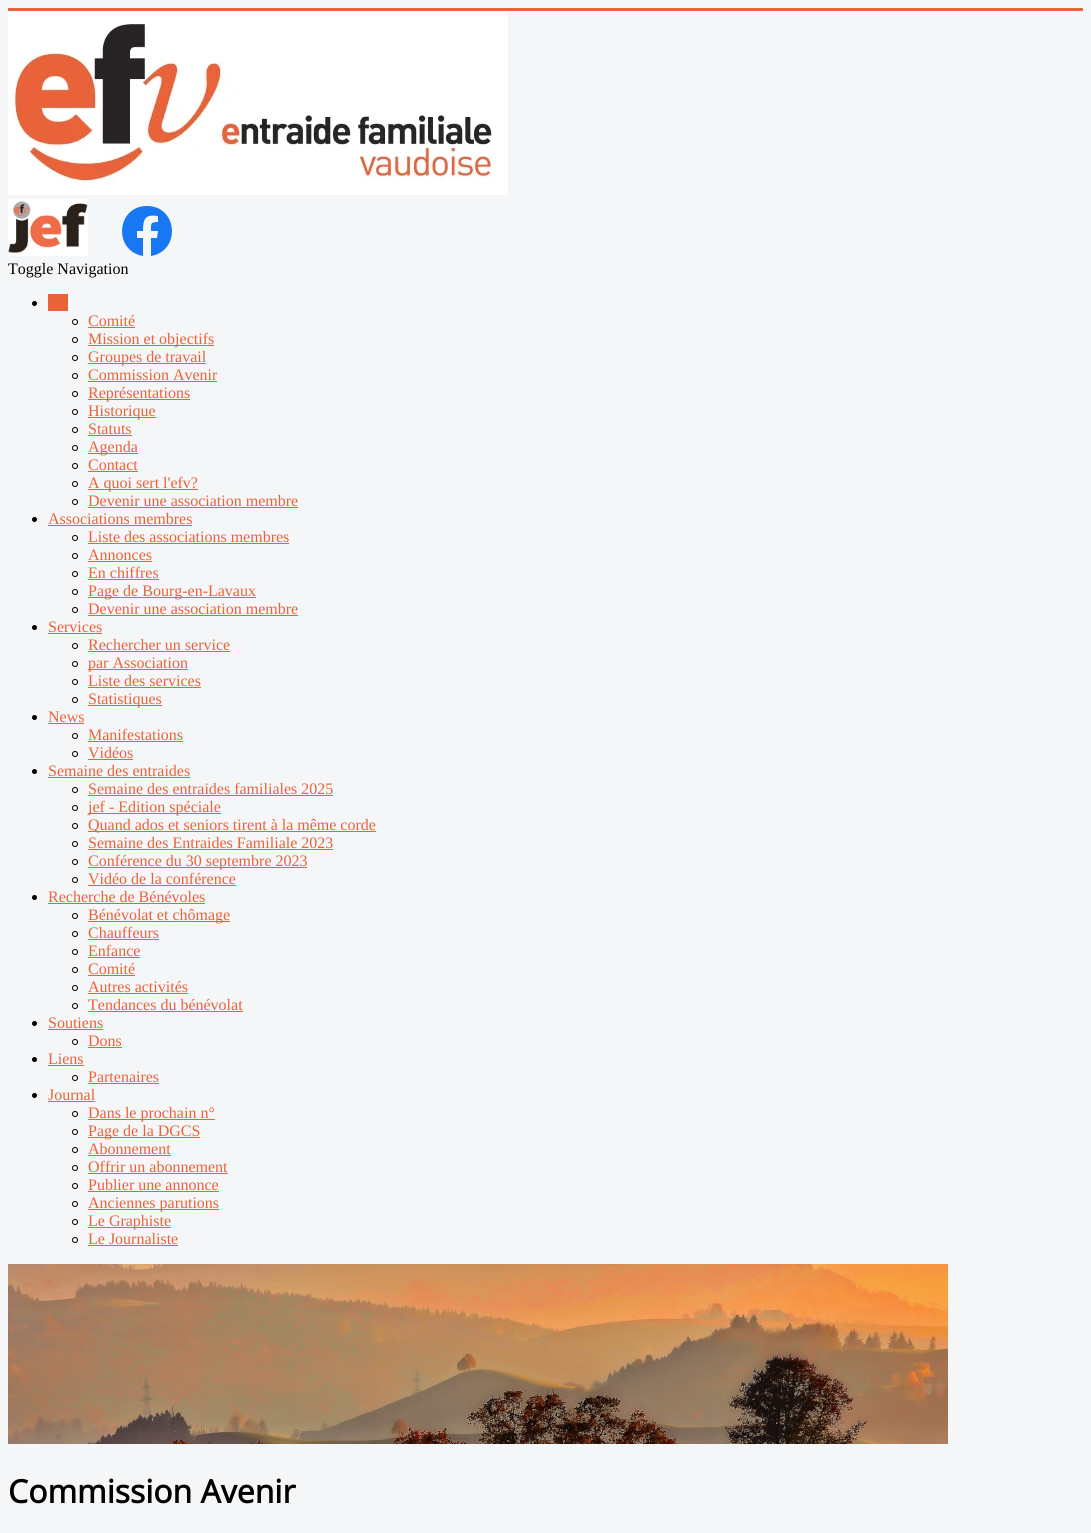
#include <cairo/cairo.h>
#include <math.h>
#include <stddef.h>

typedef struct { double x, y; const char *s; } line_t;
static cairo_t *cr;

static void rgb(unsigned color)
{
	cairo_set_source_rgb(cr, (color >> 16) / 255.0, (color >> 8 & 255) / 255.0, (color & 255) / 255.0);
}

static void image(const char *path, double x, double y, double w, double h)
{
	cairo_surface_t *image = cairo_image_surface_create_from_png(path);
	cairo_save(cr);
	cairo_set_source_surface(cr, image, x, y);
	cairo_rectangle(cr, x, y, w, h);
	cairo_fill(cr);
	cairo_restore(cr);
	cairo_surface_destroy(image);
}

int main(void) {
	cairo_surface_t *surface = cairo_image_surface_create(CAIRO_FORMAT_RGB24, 1091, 1533);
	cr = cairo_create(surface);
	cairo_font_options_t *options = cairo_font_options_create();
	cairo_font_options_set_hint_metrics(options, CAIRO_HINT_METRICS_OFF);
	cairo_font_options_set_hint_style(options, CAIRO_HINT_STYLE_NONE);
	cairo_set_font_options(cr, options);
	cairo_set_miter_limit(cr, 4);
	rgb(0xf4f6f7);
	cairo_paint(cr);
	rgb(0xe9633a);
	cairo_rectangle(cr, 8, 8, 1075, 3);
	cairo_fill(cr);
	image("img/1.png", 8, 11, 500, 184);
	image("img/2.png", 8, 199, 80, 57);
	rgb(0x1877f2);
	cairo_new_path(cr);
	cairo_move_to(cr, 147, 206);
	cairo_curve_to(cr, 116, 206, 113, 251, 143, 256);
	cairo_line_to(cr, 143, 238);
	cairo_line_to(cr, 137, 238);
	cairo_line_to(cr, 137, 231);
	cairo_line_to(cr, 143, 231);
	cairo_curve_to(cr, 143, 219, 145, 214, 158, 216);
	cairo_line_to(cr, 158, 222);
	cairo_curve_to(cr, 150, 222, 151, 224, 151, 231);
	cairo_line_to(cr, 158, 231);
	cairo_line_to(cr, 157, 238);
	cairo_line_to(cr, 151, 238);
	cairo_line_to(cr, 151, 256);
	cairo_curve_to(cr, 181, 251, 178, 206, 147, 206);
	cairo_close_path(cr);
	cairo_fill(cr);
	rgb(0x000000);
	cairo_arc(cr, 34.5, 303.5, 2.5, 0, 2 * M_PI);
	cairo_fill(cr);
	rgb(0xe9633a);
	cairo_rectangle(cr, 48, 294, 20, 17);
	cairo_fill(cr);
	cairo_arc(cr, 75, 322, 2.5, 0, 2 * M_PI);
	rgb(0x000000);
	cairo_set_line_width(cr, 1);
	cairo_stroke(cr);
	rgb(0xe9633a);
	cairo_rectangle(cr, 88, 327, 47, 1);
	cairo_fill(cr);
	cairo_arc(cr, 75, 340, 2.5, 0, 2 * M_PI);
	rgb(0x000000);
	cairo_stroke(cr);
	rgb(0xe9633a);
	cairo_rectangle(cr, 88, 345, 126, 1);
	cairo_fill(cr);
	cairo_arc(cr, 75, 358, 2.5, 0, 2 * M_PI);
	rgb(0x000000);
	cairo_stroke(cr);
	rgb(0xe9633a);
	cairo_rectangle(cr, 88, 363, 118, 1);
	cairo_fill(cr);
	cairo_arc(cr, 75, 376, 2.5, 0, 2 * M_PI);
	rgb(0x000000);
	cairo_stroke(cr);
	rgb(0xe9633a);
	cairo_rectangle(cr, 88, 381, 129, 1);
	cairo_fill(cr);
	cairo_arc(cr, 75, 394, 2.5, 0, 2 * M_PI);
	rgb(0x000000);
	cairo_stroke(cr);
	rgb(0xe9633a);
	cairo_rectangle(cr, 88, 399, 102, 1);
	cairo_fill(cr);
	cairo_arc(cr, 75, 412, 2.5, 0, 2 * M_PI);
	rgb(0x000000);
	cairo_stroke(cr);
	rgb(0xe9633a);
	cairo_rectangle(cr, 88, 417, 68, 1);
	cairo_fill(cr);
	cairo_arc(cr, 75, 430, 2.5, 0, 2 * M_PI);
	rgb(0x000000);
	cairo_stroke(cr);
	rgb(0xe9633a);
	cairo_rectangle(cr, 88, 435, 44, 1);
	cairo_fill(cr);
	cairo_arc(cr, 75, 448, 2.5, 0, 2 * M_PI);
	rgb(0x000000);
	cairo_stroke(cr);
	rgb(0xe9633a);
	cairo_rectangle(cr, 88, 453, 50, 1);
	cairo_fill(cr);
	cairo_arc(cr, 75, 466, 2.5, 0, 2 * M_PI);
	rgb(0x000000);
	cairo_stroke(cr);
	rgb(0xe9633a);
	cairo_rectangle(cr, 88, 471, 50, 1);
	cairo_fill(cr);
	cairo_arc(cr, 75, 484, 2.5, 0, 2 * M_PI);
	rgb(0x000000);
	cairo_stroke(cr);
	rgb(0xe9633a);
	cairo_rectangle(cr, 88, 489, 110, 1);
	cairo_fill(cr);
	cairo_arc(cr, 75, 502, 2.5, 0, 2 * M_PI);
	rgb(0x000000);
	cairo_stroke(cr);
	rgb(0xe9633a);
	cairo_rectangle(cr, 88, 507, 210, 1);
	cairo_fill(cr);
	rgb(0x000000);
	cairo_arc(cr, 34.5, 519.5, 2.5, 0, 2 * M_PI);
	cairo_fill(cr);
	rgb(0xe9633a);
	cairo_rectangle(cr, 48, 525, 144, 1);
	cairo_fill(cr);
	cairo_arc(cr, 75, 538, 2.5, 0, 2 * M_PI);
	rgb(0x000000);
	cairo_stroke(cr);
	rgb(0xe9633a);
	cairo_rectangle(cr, 88, 543, 201, 1);
	cairo_fill(cr);
	cairo_arc(cr, 75, 556, 2.5, 0, 2 * M_PI);
	rgb(0x000000);
	cairo_stroke(cr);
	rgb(0xe9633a);
	cairo_rectangle(cr, 88, 561, 64, 1);
	cairo_fill(cr);
	cairo_arc(cr, 75, 574, 2.5, 0, 2 * M_PI);
	rgb(0x000000);
	cairo_stroke(cr);
	rgb(0xe9633a);
	cairo_rectangle(cr, 88, 579, 71, 1);
	cairo_fill(cr);
	cairo_arc(cr, 75, 592, 2.5, 0, 2 * M_PI);
	rgb(0x000000);
	cairo_stroke(cr);
	rgb(0xe9633a);
	cairo_rectangle(cr, 88, 597, 168, 1);
	cairo_fill(cr);
	cairo_arc(cr, 75, 610, 2.5, 0, 2 * M_PI);
	rgb(0x000000);
	cairo_stroke(cr);
	rgb(0xe9633a);
	cairo_rectangle(cr, 88, 615, 210, 1);
	cairo_fill(cr);
	rgb(0x000000);
	cairo_arc(cr, 34.5, 627.5, 2.5, 0, 2 * M_PI);
	cairo_fill(cr);
	rgb(0xe9633a);
	cairo_rectangle(cr, 48, 633, 54, 1);
	cairo_fill(cr);
	cairo_arc(cr, 75, 646, 2.5, 0, 2 * M_PI);
	rgb(0x000000);
	cairo_stroke(cr);
	rgb(0xe9633a);
	cairo_rectangle(cr, 88, 651, 142, 1);
	cairo_fill(cr);
	cairo_arc(cr, 75, 664, 2.5, 0, 2 * M_PI);
	rgb(0x000000);
	cairo_stroke(cr);
	rgb(0xe9633a);
	cairo_rectangle(cr, 88, 669, 100, 1);
	cairo_fill(cr);
	cairo_arc(cr, 75, 682, 2.5, 0, 2 * M_PI);
	rgb(0x000000);
	cairo_stroke(cr);
	rgb(0xe9633a);
	cairo_rectangle(cr, 88, 687, 113, 1);
	cairo_fill(cr);
	cairo_arc(cr, 75, 700, 2.5, 0, 2 * M_PI);
	rgb(0x000000);
	cairo_stroke(cr);
	rgb(0xe9633a);
	cairo_rectangle(cr, 88, 705, 74, 1);
	cairo_fill(cr);
	rgb(0x000000);
	cairo_arc(cr, 34.5, 717.5, 2.5, 0, 2 * M_PI);
	cairo_fill(cr);
	rgb(0xe9633a);
	cairo_rectangle(cr, 48, 723, 36, 1);
	cairo_fill(cr);
	cairo_arc(cr, 75, 736, 2.5, 0, 2 * M_PI);
	rgb(0x000000);
	cairo_stroke(cr);
	rgb(0xe9633a);
	cairo_rectangle(cr, 88, 741, 95, 1);
	cairo_fill(cr);
	cairo_arc(cr, 75, 754, 2.5, 0, 2 * M_PI);
	rgb(0x000000);
	cairo_stroke(cr);
	rgb(0xe9633a);
	cairo_rectangle(cr, 88, 759, 45, 1);
	cairo_fill(cr);
	rgb(0x000000);
	cairo_arc(cr, 34.5, 771.5, 2.5, 0, 2 * M_PI);
	cairo_fill(cr);
	rgb(0xe9633a);
	cairo_rectangle(cr, 48, 777, 142, 1);
	cairo_fill(cr);
	cairo_arc(cr, 75, 790, 2.5, 0, 2 * M_PI);
	rgb(0x000000);
	cairo_stroke(cr);
	rgb(0xe9633a);
	cairo_rectangle(cr, 88, 795, 245, 1);
	cairo_fill(cr);
	cairo_arc(cr, 75, 808, 2.5, 0, 2 * M_PI);
	rgb(0x000000);
	cairo_stroke(cr);
	rgb(0xe9633a);
	cairo_rectangle(cr, 88, 813, 133, 1);
	cairo_fill(cr);
	cairo_arc(cr, 75, 826, 2.5, 0, 2 * M_PI);
	rgb(0x000000);
	cairo_stroke(cr);
	rgb(0xe9633a);
	cairo_rectangle(cr, 88, 831, 288, 1);
	cairo_fill(cr);
	cairo_arc(cr, 75, 844, 2.5, 0, 2 * M_PI);
	rgb(0x000000);
	cairo_stroke(cr);
	rgb(0xe9633a);
	cairo_rectangle(cr, 88, 849, 245, 1);
	cairo_fill(cr);
	cairo_arc(cr, 75, 862, 2.5, 0, 2 * M_PI);
	rgb(0x000000);
	cairo_stroke(cr);
	rgb(0xe9633a);
	cairo_rectangle(cr, 88, 867, 219, 1);
	cairo_fill(cr);
	cairo_arc(cr, 75, 880, 2.5, 0, 2 * M_PI);
	rgb(0x000000);
	cairo_stroke(cr);
	rgb(0xe9633a);
	cairo_rectangle(cr, 88, 885, 148, 1);
	cairo_fill(cr);
	rgb(0x000000);
	cairo_arc(cr, 34.5, 897.5, 2.5, 0, 2 * M_PI);
	cairo_fill(cr);
	rgb(0xe9633a);
	cairo_rectangle(cr, 48, 903, 157, 1);
	cairo_fill(cr);
	cairo_arc(cr, 75, 916, 2.5, 0, 2 * M_PI);
	rgb(0x000000);
	cairo_stroke(cr);
	rgb(0xe9633a);
	cairo_rectangle(cr, 88, 921, 142, 1);
	cairo_fill(cr);
	cairo_arc(cr, 75, 934, 2.5, 0, 2 * M_PI);
	rgb(0x000000);
	cairo_stroke(cr);
	rgb(0xe9633a);
	cairo_rectangle(cr, 88, 939, 71, 1);
	cairo_fill(cr);
	cairo_arc(cr, 75, 952, 2.5, 0, 2 * M_PI);
	rgb(0x000000);
	cairo_stroke(cr);
	rgb(0xe9633a);
	cairo_rectangle(cr, 88, 957, 52, 1);
	cairo_fill(cr);
	cairo_arc(cr, 75, 970, 2.5, 0, 2 * M_PI);
	rgb(0x000000);
	cairo_stroke(cr);
	rgb(0xe9633a);
	cairo_rectangle(cr, 88, 975, 47, 1);
	cairo_fill(cr);
	cairo_arc(cr, 75, 988, 2.5, 0, 2 * M_PI);
	rgb(0x000000);
	cairo_stroke(cr);
	rgb(0xe9633a);
	cairo_rectangle(cr, 88, 993, 100, 1);
	cairo_fill(cr);
	cairo_arc(cr, 75, 1006, 2.5, 0, 2 * M_PI);
	rgb(0x000000);
	cairo_stroke(cr);
	rgb(0xe9633a);
	cairo_rectangle(cr, 88, 1011, 155, 1);
	cairo_fill(cr);
	rgb(0x000000);
	cairo_arc(cr, 34.5, 1023.5, 2.5, 0, 2 * M_PI);
	cairo_fill(cr);
	rgb(0xe9633a);
	cairo_rectangle(cr, 48, 1029, 55, 1);
	cairo_fill(cr);
	cairo_arc(cr, 75, 1042, 2.5, 0, 2 * M_PI);
	rgb(0x000000);
	cairo_stroke(cr);
	rgb(0xe9633a);
	cairo_rectangle(cr, 88, 1047, 34, 1);
	cairo_fill(cr);
	rgb(0x000000);
	cairo_arc(cr, 34.5, 1059.5, 2.5, 0, 2 * M_PI);
	cairo_fill(cr);
	rgb(0xe9633a);
	cairo_rectangle(cr, 48, 1065, 36, 1);
	cairo_fill(cr);
	cairo_arc(cr, 75, 1078, 2.5, 0, 2 * M_PI);
	rgb(0x000000);
	cairo_stroke(cr);
	rgb(0xe9633a);
	cairo_rectangle(cr, 88, 1083, 71, 1);
	cairo_fill(cr);
	rgb(0x000000);
	cairo_arc(cr, 34.5, 1095.5, 2.5, 0, 2 * M_PI);
	cairo_fill(cr);
	rgb(0xe9633a);
	cairo_rectangle(cr, 48, 1101, 47, 1);
	cairo_fill(cr);
	cairo_arc(cr, 75, 1114, 2.5, 0, 2 * M_PI);
	rgb(0x000000);
	cairo_stroke(cr);
	rgb(0xe9633a);
	cairo_rectangle(cr, 88, 1119, 127, 1);
	cairo_fill(cr);
	cairo_arc(cr, 75, 1132, 2.5, 0, 2 * M_PI);
	rgb(0x000000);
	cairo_stroke(cr);
	rgb(0xe9633a);
	cairo_rectangle(cr, 88, 1137, 112, 1);
	cairo_fill(cr);
	cairo_arc(cr, 75, 1150, 2.5, 0, 2 * M_PI);
	rgb(0x000000);
	cairo_stroke(cr);
	rgb(0xe9633a);
	cairo_rectangle(cr, 88, 1155, 83, 1);
	cairo_fill(cr);
	cairo_arc(cr, 75, 1168, 2.5, 0, 2 * M_PI);
	rgb(0x000000);
	cairo_stroke(cr);
	rgb(0xe9633a);
	cairo_rectangle(cr, 88, 1173, 140, 1);
	cairo_fill(cr);
	cairo_arc(cr, 75, 1186, 2.5, 0, 2 * M_PI);
	rgb(0x000000);
	cairo_stroke(cr);
	rgb(0xe9633a);
	cairo_rectangle(cr, 88, 1191, 131, 1);
	cairo_fill(cr);
	cairo_arc(cr, 75, 1204, 2.5, 0, 2 * M_PI);
	rgb(0x000000);
	cairo_stroke(cr);
	rgb(0xe9633a);
	cairo_rectangle(cr, 88, 1209, 131, 1);
	cairo_fill(cr);
	cairo_arc(cr, 75, 1222, 2.5, 0, 2 * M_PI);
	rgb(0x000000);
	cairo_stroke(cr);
	rgb(0xe9633a);
	cairo_rectangle(cr, 88, 1227, 83, 1);
	cairo_fill(cr);
	cairo_arc(cr, 75, 1240, 2.5, 0, 2 * M_PI);
	rgb(0x000000);
	cairo_stroke(cr);
	rgb(0xe9633a);
	cairo_rectangle(cr, 88, 1245, 90, 1);
	cairo_fill(cr);
	image("img/3.png", 8, 1264, 940, 180);
	cairo_select_font_face(cr, "Liberation Serif", CAIRO_FONT_SLANT_NORMAL, CAIRO_FONT_WEIGHT_NORMAL);
	cairo_set_font_size(cr, 16);
	rgb(0x000000);
	cairo_move_to(cr, 8, 274);
	cairo_show_text(cr, "Toggle Navigation");
	rgb(0xe9633a);
	{
		static const line_t items[] = {
			{88, 326, "Comité"},
			{88, 344, "Mission et objectifs"},
			{88, 362, "Groupes de travail"},
			{88, 380, "Commission Avenir"},
			{88, 398, "Représentations"},
			{88, 416, "Historique"},
			{88, 434, "Statuts"},
			{88, 452, "Agenda"},
			{88, 470, "Contact"},
			{88, 488, "A quoi sert l'efv?"},
			{88, 506, "Devenir une association membre"},
			{48, 524, "Associations membres"},
			{88, 542, "Liste des associations membres"},
			{88, 560, "Annonces"},
			{88, 578, "En chiffres"},
			{88, 596, "Page de Bourg-en-Lavaux"},
			{88, 614, "Devenir une association membre"},
			{48, 632, "Services"},
			{88, 650, "Rechercher un service"},
			{88, 668, "par Association"},
			{88, 686, "Liste des services"},
			{88, 704, "Statistiques"},
			{48, 722, "News"},
			{88, 740, "Manifestations"},
			{88, 758, "Vidéos"},
			{48, 776, "Semaine des entraides"},
			{88, 794, "Semaine des entraides familiales 2025"},
			{88, 812, "jef - Edition spéciale"},
			{88, 830, "Quand ados et seniors tirent à la même corde"},
			{88, 848, "Semaine des Entraides Familiale 2023"},
			{88, 866, "Conférence du 30 septembre 2023"},
			{88, 884, "Vidéo de la conférence"},
			{48, 902, "Recherche de Bénévoles"},
			{88, 920, "Bénévolat et chômage"},
			{88, 938, "Chauffeurs"},
			{88, 956, "Enfance"},
			{88, 974, "Comité"},
			{88, 992, "Autres activités"},
			{88, 1010, "Tendances du bénévolat"},
			{48, 1028, "Soutiens"},
			{88, 1046, "Dons"},
			{48, 1064, "Liens"},
			{88, 1082, "Partenaires"},
			{48, 1100, "Journal"},
			{88, 1118, "Dans le prochain n°"},
			{88, 1136, "Page de la DGCS"},
			{88, 1154, "Abonnement"},
			{88, 1172, "Offrir un abonnement"},
			{88, 1190, "Publier une annonce"},
			{88, 1208, "Anciennes parutions"},
			{88, 1226, "Le Graphiste"},
			{88, 1244, "Le Journaliste"},
		};
		for (size_t i = 0; i < sizeof items / sizeof *items; i++) {
			cairo_move_to(cr, items[i].x, items[i].y);
			cairo_show_text(cr, items[i].s);
		}
	}
	cairo_select_font_face(cr, "Open Sans", CAIRO_FONT_SLANT_NORMAL, CAIRO_FONT_WEIGHT_BOLD);
	cairo_set_font_size(cr, 32);
	rgb(0x000000);
	cairo_move_to(cr, 8, 1503);
	cairo_show_text(cr, "Commission Avenir");
	cairo_surface_write_to_png(surface, "page.png");
	cairo_font_options_destroy(options);
	cairo_destroy(cr);
	cairo_surface_destroy(surface);
	return 0;
}
